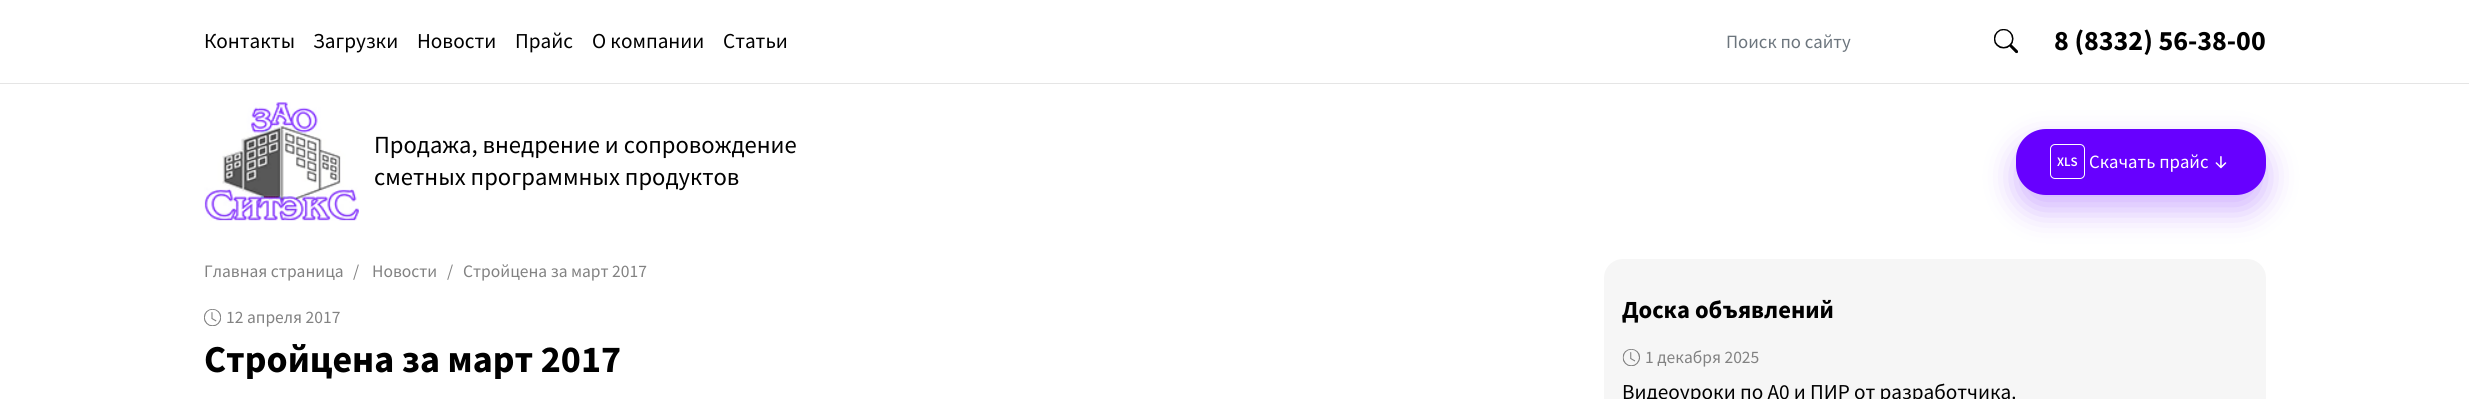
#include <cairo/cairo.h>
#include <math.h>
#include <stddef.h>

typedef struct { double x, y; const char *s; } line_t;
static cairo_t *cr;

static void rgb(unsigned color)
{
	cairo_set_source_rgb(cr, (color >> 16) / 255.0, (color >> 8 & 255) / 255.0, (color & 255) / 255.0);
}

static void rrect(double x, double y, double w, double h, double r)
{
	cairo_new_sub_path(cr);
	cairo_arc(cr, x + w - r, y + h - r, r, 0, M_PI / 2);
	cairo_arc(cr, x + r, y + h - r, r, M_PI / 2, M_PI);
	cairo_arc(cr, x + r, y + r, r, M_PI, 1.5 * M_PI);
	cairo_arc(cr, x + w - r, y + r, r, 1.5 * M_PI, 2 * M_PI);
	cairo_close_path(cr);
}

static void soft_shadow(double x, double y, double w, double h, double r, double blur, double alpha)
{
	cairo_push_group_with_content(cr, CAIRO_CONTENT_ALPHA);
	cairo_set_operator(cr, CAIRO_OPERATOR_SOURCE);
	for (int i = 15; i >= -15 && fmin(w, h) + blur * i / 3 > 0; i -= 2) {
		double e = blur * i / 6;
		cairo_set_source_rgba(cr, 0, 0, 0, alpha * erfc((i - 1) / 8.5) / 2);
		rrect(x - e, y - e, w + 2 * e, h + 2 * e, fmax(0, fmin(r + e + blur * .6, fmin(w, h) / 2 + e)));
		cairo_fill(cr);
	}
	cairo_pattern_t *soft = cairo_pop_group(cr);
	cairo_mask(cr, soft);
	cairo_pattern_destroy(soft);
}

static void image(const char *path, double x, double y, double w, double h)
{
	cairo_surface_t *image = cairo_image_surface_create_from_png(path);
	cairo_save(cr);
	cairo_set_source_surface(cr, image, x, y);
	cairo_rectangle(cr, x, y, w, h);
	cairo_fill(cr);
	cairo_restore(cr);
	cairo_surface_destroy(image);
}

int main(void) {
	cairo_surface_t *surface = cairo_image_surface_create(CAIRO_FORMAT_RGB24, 2469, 399);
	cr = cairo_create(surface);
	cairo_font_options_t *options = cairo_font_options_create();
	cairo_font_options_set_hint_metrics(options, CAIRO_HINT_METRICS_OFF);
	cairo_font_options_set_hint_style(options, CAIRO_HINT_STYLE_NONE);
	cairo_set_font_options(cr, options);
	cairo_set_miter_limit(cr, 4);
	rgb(0xffffff);
	cairo_paint(cr);
	rgb(0xe5e5e5);
	cairo_rectangle(cr, 0, 83, 2469, 1);
	cairo_fill(cr);
	image("img/1.png", 1994, 29, 24, 25);
	image("img/2.png", 204, 102, 155, 119);
	rgb(0x6700ff);
	soft_shadow(2016, 144, 250, 66, 30, 15.5, 0.3);
	rgb(0x6700ff);
	rrect(2017.5, 130.5, 247, 63, 28.5);
	cairo_fill_preserve(cr);
	cairo_set_line_width(cr, 3);
	cairo_stroke(cr);
	rrect(2050.5, 144.5, 34, 34, 4.5);
	rgb(0xffffff);
	cairo_set_line_width(cr, 1);
	cairo_stroke(cr);
	image("img/3.png", 2215, 156, 12, 13);
	image("img/4.png", 204, 309, 17, 17);
	rgb(0xf6f6f6);
	rrect(1604, 259, 662, 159, 19);
	cairo_fill(cr);
	image("img/5.png", 1622, 349, 18, 17);
	cairo_select_font_face(cr, "Source Sans Pro", CAIRO_FONT_SLANT_NORMAL, CAIRO_FONT_WEIGHT_NORMAL);
	cairo_set_font_size(cr, 21.25);
	rgb(0x000000);
	{
		static const line_t items[] = {
			{204, 48, "Контакты"},
			{313, 48, "Загрузки"},
			{417, 48, "Новости"},
			{515, 48, "Прайс"},
			{592, 48, "О компании"},
			{723, 48, "Статьи"},
		};
		for (size_t i = 0; i < sizeof items / sizeof *items; i++) {
			cairo_move_to(cr, items[i].x, items[i].y);
			cairo_show_text(cr, items[i].s);
		}
	}
	cairo_set_font_size(cr, 18.75);
	rgb(0x6c757d);
	cairo_move_to(cr, 1726, 48);
	cairo_show_text(cr, "Поиск по сайту");
	cairo_select_font_face(cr, "Source Sans Pro", CAIRO_FONT_SLANT_NORMAL, CAIRO_FONT_WEIGHT_BOLD);
	cairo_set_font_size(cr, 28);
	rgb(0x000000);
	cairo_move_to(cr, 2054, 50);
	cairo_show_text(cr, "8 (8332) 56-38-00");
	cairo_select_font_face(cr, "Source Sans Pro", CAIRO_FONT_SLANT_NORMAL, CAIRO_FONT_WEIGHT_NORMAL);
	cairo_set_font_size(cr, 24.6);
	cairo_move_to(cr, 374, 153);
	cairo_show_text(cr, "Продажа, внедрение и сопровождение");
	cairo_move_to(cr, 374, 185);
	cairo_show_text(cr, "сметных программных продуктов");
	cairo_select_font_face(cr, "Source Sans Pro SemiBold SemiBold", CAIRO_FONT_SLANT_NORMAL, CAIRO_FONT_WEIGHT_NORMAL);
	cairo_set_font_size(cr, 13);
	rgb(0xffffff);
	cairo_move_to(cr, 2057, 166);
	cairo_show_text(cr, "XLS");
	cairo_select_font_face(cr, "Source Sans Pro", CAIRO_FONT_SLANT_NORMAL, CAIRO_FONT_WEIGHT_NORMAL);
	cairo_set_font_size(cr, 18.75);
	cairo_move_to(cr, 2089, 168);
	cairo_show_text(cr, "Скачать прайс");
	cairo_set_font_size(cr, 17.5);
	rgb(0x828282);
	{
		static const line_t items[] = {
			{204, 277, "Главная страница"},
			{353, 277, "/"},
			{372, 277, "Новости"},
			{447, 277, "/"},
			{463, 277, "Стройцена за март 2017"},
			{226, 323, "12 апреля 2017"},
		};
		for (size_t i = 0; i < sizeof items / sizeof *items; i++) {
			cairo_move_to(cr, items[i].x, items[i].y);
			cairo_show_text(cr, items[i].s);
		}
	}
	cairo_select_font_face(cr, "Source Sans Pro", CAIRO_FONT_SLANT_NORMAL, CAIRO_FONT_WEIGHT_BOLD);
	cairo_set_font_size(cr, 38);
	rgb(0x000000);
	cairo_move_to(cr, 204, 372);
	cairo_show_text(cr, "Стройцена за март 2017");
	cairo_set_font_size(cr, 24.6);
	cairo_move_to(cr, 1622, 318);
	cairo_show_text(cr, "Доска объявлений");
	cairo_select_font_face(cr, "Source Sans Pro", CAIRO_FONT_SLANT_NORMAL, CAIRO_FONT_WEIGHT_NORMAL);
	cairo_set_font_size(cr, 17.5);
	rgb(0x828282);
	cairo_move_to(cr, 1645, 363);
	cairo_show_text(cr, "1 декабря 2025");
	cairo_set_font_size(cr, 21.25);
	rgb(0x000000);
	cairo_move_to(cr, 1622, 399);
	cairo_show_text(cr, "Видеоуроки по А0 и ПИР от разработчика.");
	cairo_surface_write_to_png(surface, "page.png");
	cairo_font_options_destroy(options);
	cairo_destroy(cr);
	cairo_surface_destroy(surface);
	return 0;
}
